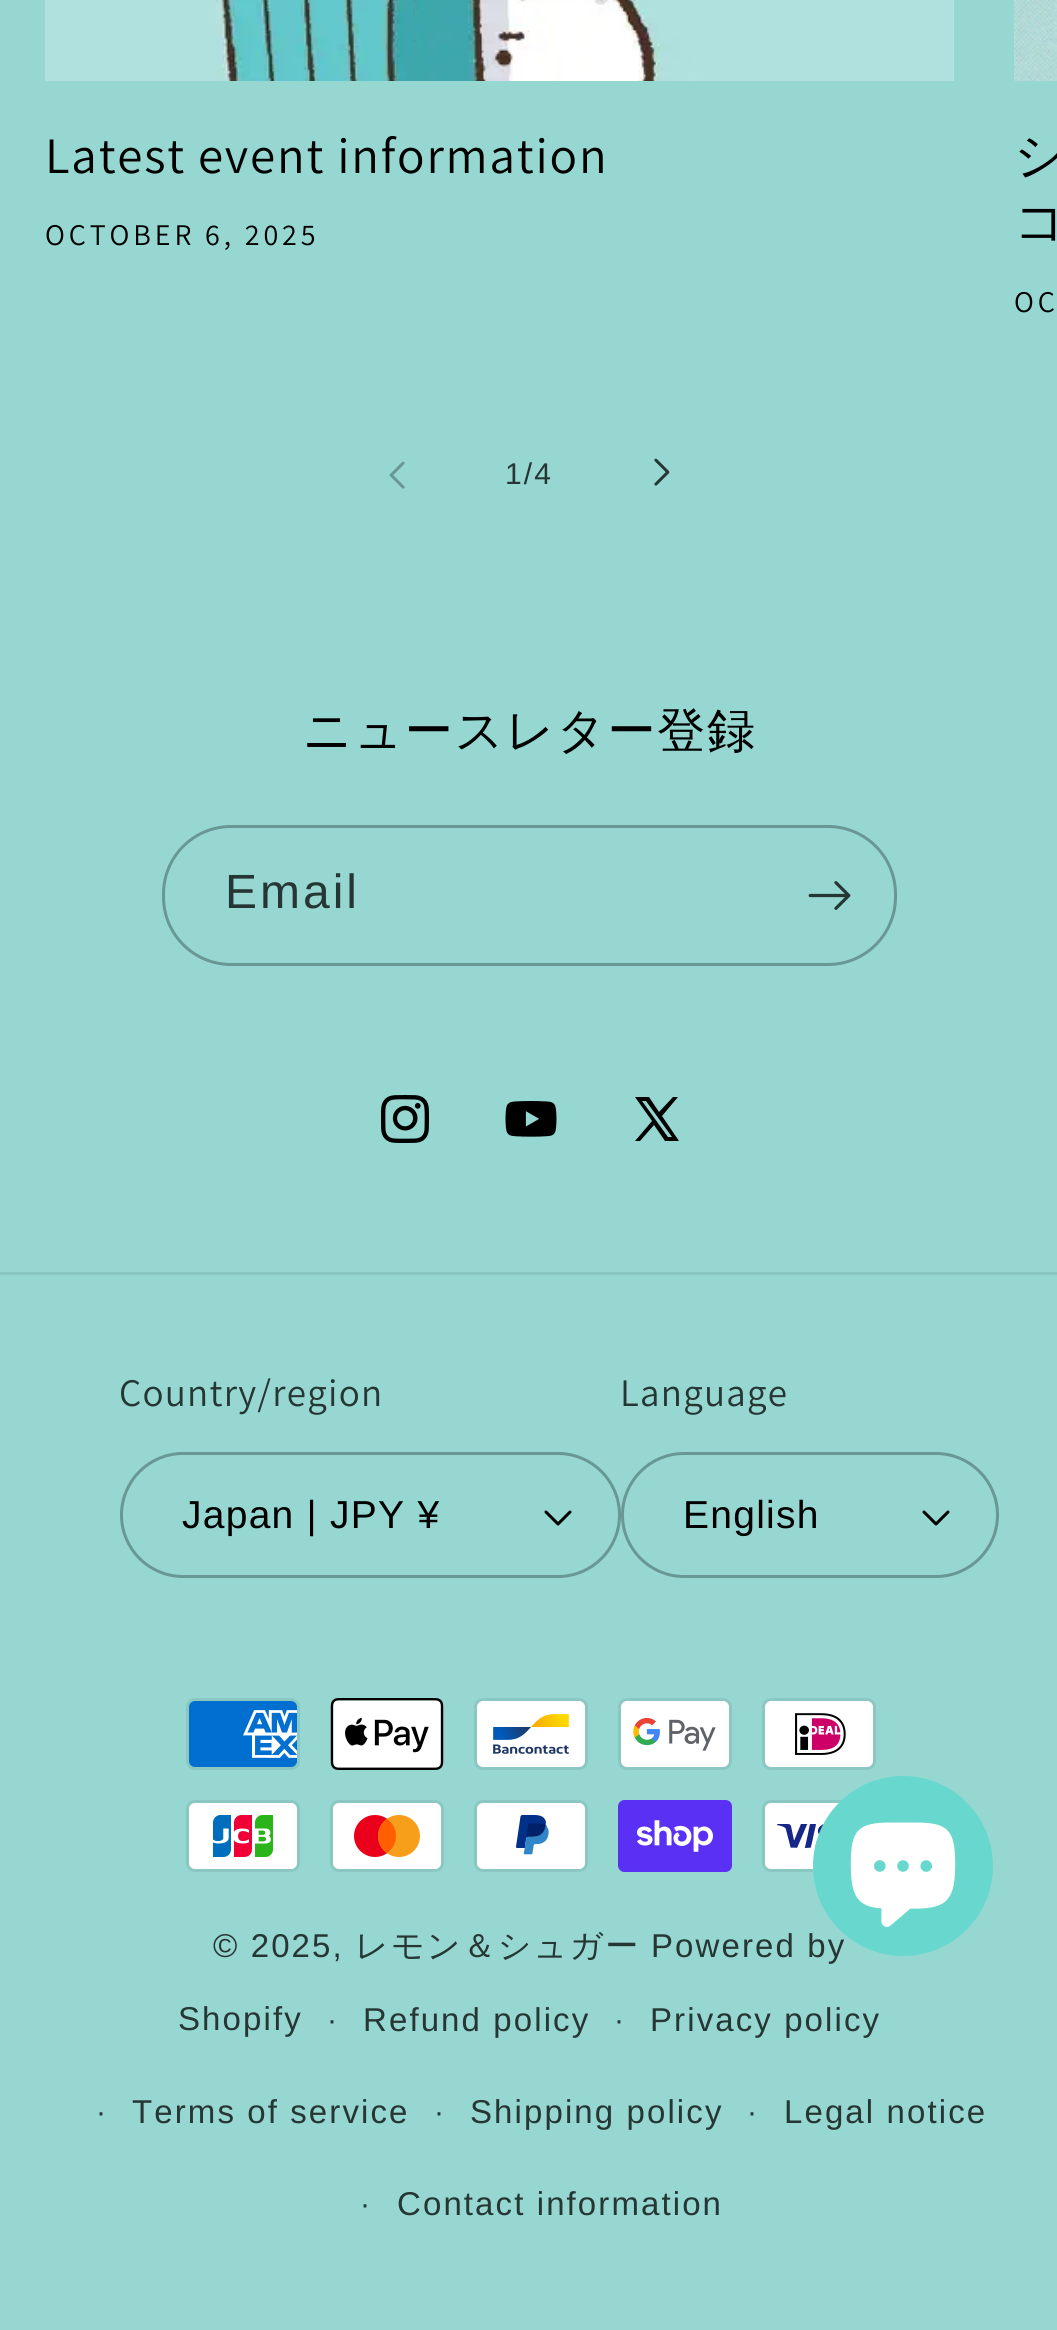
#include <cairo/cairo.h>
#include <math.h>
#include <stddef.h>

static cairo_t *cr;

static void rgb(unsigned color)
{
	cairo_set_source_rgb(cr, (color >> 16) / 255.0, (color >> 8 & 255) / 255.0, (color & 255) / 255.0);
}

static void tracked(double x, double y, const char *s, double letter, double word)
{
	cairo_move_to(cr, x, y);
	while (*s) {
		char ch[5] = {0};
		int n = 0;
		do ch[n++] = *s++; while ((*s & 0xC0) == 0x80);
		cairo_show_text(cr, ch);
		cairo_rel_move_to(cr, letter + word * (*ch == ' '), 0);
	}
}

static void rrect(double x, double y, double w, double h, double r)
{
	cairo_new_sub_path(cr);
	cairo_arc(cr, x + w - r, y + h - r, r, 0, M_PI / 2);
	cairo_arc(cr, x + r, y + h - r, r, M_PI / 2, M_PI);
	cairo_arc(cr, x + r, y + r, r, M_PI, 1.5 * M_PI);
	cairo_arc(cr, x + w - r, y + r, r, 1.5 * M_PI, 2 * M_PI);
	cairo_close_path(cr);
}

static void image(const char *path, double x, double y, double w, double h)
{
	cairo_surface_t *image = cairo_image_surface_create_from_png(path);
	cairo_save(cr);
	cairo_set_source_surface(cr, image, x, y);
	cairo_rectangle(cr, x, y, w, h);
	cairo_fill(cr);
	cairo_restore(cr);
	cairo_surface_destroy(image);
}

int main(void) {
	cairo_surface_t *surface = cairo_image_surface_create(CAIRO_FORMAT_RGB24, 1057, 2330);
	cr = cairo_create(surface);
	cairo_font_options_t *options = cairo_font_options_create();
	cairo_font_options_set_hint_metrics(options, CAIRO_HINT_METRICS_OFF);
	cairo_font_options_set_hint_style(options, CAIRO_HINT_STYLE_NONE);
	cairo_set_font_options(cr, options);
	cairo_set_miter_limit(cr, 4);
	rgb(0x96d7d2);
	cairo_paint(cr);
	image("img/1.png", 45, 0, 909, 81);
	image("img/2.png", 1014, 0, 43, 81);
	image("img/3.png", 389, 461, 16, 28);
	image("img/4.png", 654, 458, 16, 28);
	rrect(163.5, 826.5, 732, 138, 67.5);
	rgb(0x699793);
	cairo_set_line_width(cr, 3);
	cairo_stroke(cr);
	image("img/5.png", 808, 881, 43, 29);
	image("img/6.png", 381, 1095, 48, 48);
	image("img/7.png", 505, 1101, 52, 36);
	rgb(0x000000);
	cairo_set_fill_rule(cr, CAIRO_FILL_RULE_EVEN_ODD);
	cairo_new_path(cr);
	cairo_move_to(cr, 649, 1097);
	cairo_line_to(cr, 659, 1112);
	cairo_line_to(cr, 673, 1097);
	cairo_line_to(cr, 678, 1097);
	cairo_line_to(cr, 662, 1116);
	cairo_line_to(cr, 679, 1141);
	cairo_line_to(cr, 665, 1141);
	cairo_line_to(cr, 654, 1125);
	cairo_line_to(cr, 640, 1141);
	cairo_line_to(cr, 635, 1141);
	cairo_line_to(cr, 652, 1121);
	cairo_line_to(cr, 635, 1097);
	cairo_close_path(cr);
	cairo_move_to(cr, 668, 1137);
	cairo_line_to(cr, 642, 1101);
	cairo_line_to(cr, 646, 1101);
	cairo_line_to(cr, 672, 1137);
	cairo_close_path(cr);
	cairo_fill(cr);
	rgb(0x8ac6c1);
	cairo_rectangle(cr, 0, 1272, 1057, 3);
	cairo_fill(cr);
	image("img/8.png", 544, 1510, 28, 16);
	rrect(121.5, 1453.5, 498, 123, 61.5);
	rgb(0x699793);
	cairo_stroke(cr);
	image("img/8.png", 922, 1510, 28, 16);
	rrect(622.5, 1453.5, 375, 123, 61.5);
	cairo_stroke(cr);
	image("img/9.png", 186, 1698, 114, 72);
	image("img/10.png", 330, 1698, 114, 72);
	image("img/11.png", 474, 1698, 114, 72);
	image("img/12.png", 618, 1698, 114, 72);
	image("img/13.png", 762, 1698, 114, 72);
	image("img/14.png", 186, 1800, 114, 72);
	image("img/15.png", 330, 1800, 114, 72);
	image("img/16.png", 474, 1800, 114, 72);
	image("img/17.png", 618, 1800, 114, 72);
	image("img/18.png", 762, 1800, 80, 72);
	cairo_select_font_face(cr, "Assistant", CAIRO_FONT_SLANT_NORMAL, CAIRO_FONT_WEIGHT_NORMAL);
	cairo_set_font_size(cr, 51);
	rgb(0x000000);
	tracked(45, 173, "Latest event information", 1.8, 0);
	cairo_set_font_size(cr, 30);
	tracked(45, 245, "OCTOBER 6, 2025", 3.9, 0);
	cairo_select_font_face(cr, "WenQuanYi Zen Hei Medium", CAIRO_FONT_SLANT_NORMAL, CAIRO_FONT_WEIGHT_NORMAL);
	cairo_set_font_size(cr, 51);
	tracked(1014, 173, "シ", 1.8, 0);
	tracked(1014, 239, "コ", 1.8, 0);
	cairo_select_font_face(cr, "Assistant", CAIRO_FONT_SLANT_NORMAL, CAIRO_FONT_WEIGHT_NORMAL);
	cairo_set_font_size(cr, 30);
	tracked(1014, 312, "OC", 3.9, 0);
	cairo_select_font_face(cr, "Liberation Sans", CAIRO_FONT_SLANT_NORMAL, CAIRO_FONT_WEIGHT_NORMAL);
	rgb(0x263635);
	tracked(505, 484, "1/4", 2.1, 0);
	cairo_select_font_face(cr, "WenQuanYi Zen Hei Medium", CAIRO_FONT_SLANT_NORMAL, CAIRO_FONT_WEIGHT_NORMAL);
	cairo_set_font_size(cr, 48);
	rgb(0x000000);
	tracked(303, 747, "ニュースレター登録", 1.8, 0);
	cairo_select_font_face(cr, "Liberation Sans", CAIRO_FONT_SLANT_NORMAL, CAIRO_FONT_WEIGHT_NORMAL);
	rgb(0x263635);
	tracked(225, 908, "Email", 3, 0);
	cairo_select_font_face(cr, "Assistant", CAIRO_FONT_SLANT_NORMAL, CAIRO_FONT_WEIGHT_NORMAL);
	cairo_set_font_size(cr, 39);
	tracked(119, 1406, "Country/region", 1.25, 0);
	cairo_select_font_face(cr, "Liberation Sans", CAIRO_FONT_SLANT_NORMAL, CAIRO_FONT_WEIGHT_NORMAL);
	rgb(0x000000);
	tracked(182, 1528, "Japan | JPY ¥", 1.25, 0);
	cairo_select_font_face(cr, "Assistant", CAIRO_FONT_SLANT_NORMAL, CAIRO_FONT_WEIGHT_NORMAL);
	rgb(0x263635);
	tracked(620, 1406, "Language", 1.25, 0);
	cairo_select_font_face(cr, "Liberation Sans", CAIRO_FONT_SLANT_NORMAL, CAIRO_FONT_WEIGHT_NORMAL);
	rgb(0x000000);
	tracked(683, 1528, "English", 1.25, 0);
	cairo_set_font_size(cr, 33);
	rgb(0x263635);
	tracked(213, 1957, "© 2025,", 2.1, 0);
	cairo_select_font_face(cr, "WenQuanYi Zen Hei Medium", CAIRO_FONT_SLANT_NORMAL, CAIRO_FONT_WEIGHT_NORMAL);
	tracked(355, 1957, "レモン＆シュガー", 2.1, 0);
	cairo_select_font_face(cr, "Liberation Sans", CAIRO_FONT_SLANT_NORMAL, CAIRO_FONT_WEIGHT_NORMAL);
	tracked(651, 1957, "Powered by", 2.1, 0);
	tracked(178, 2030, "Shopify", 2.1, 0);
	cairo_set_font_size(cr, 30);
	tracked(327, 2030, "·", 2.1, 0);
	cairo_set_font_size(cr, 33);
	tracked(363, 2031, "Refund policy", 2.1, 0);
	cairo_set_font_size(cr, 30);
	tracked(614, 2030, "·", 2.1, 0);
	cairo_set_font_size(cr, 33);
	tracked(650, 2031, "Privacy policy", 2.1, 0);
	cairo_set_font_size(cr, 30);
	tracked(96, 2122, "·", 2.1, 0);
	cairo_set_font_size(cr, 33);
	tracked(132, 2123, "Terms of service", 2.1, 0);
	cairo_set_font_size(cr, 30);
	tracked(434, 2122, "·", 2.1, 0);
	cairo_set_font_size(cr, 33);
	tracked(470, 2123, "Shipping policy", 2.1, 0);
	cairo_set_font_size(cr, 30);
	tracked(747, 2122, "·", 2.1, 0);
	cairo_set_font_size(cr, 33);
	tracked(784, 2123, "Legal notice", 2.1, 0);
	cairo_set_font_size(cr, 30);
	tracked(360, 2214, "·", 2.1, 0);
	cairo_set_font_size(cr, 33);
	tracked(397, 2215, "Contact information", 2.1, 0);
	rgb(0x68d8cf);
	cairo_new_path(cr);
	cairo_arc(cr, 903, 1866, 90, 0, 2 * M_PI);
	cairo_fill(cr);
	image("img/19.png", 850, 1822, 106, 105);
	cairo_surface_write_to_png(surface, "page.png");
	cairo_font_options_destroy(options);
	cairo_destroy(cr);
	cairo_surface_destroy(surface);
	return 0;
}
